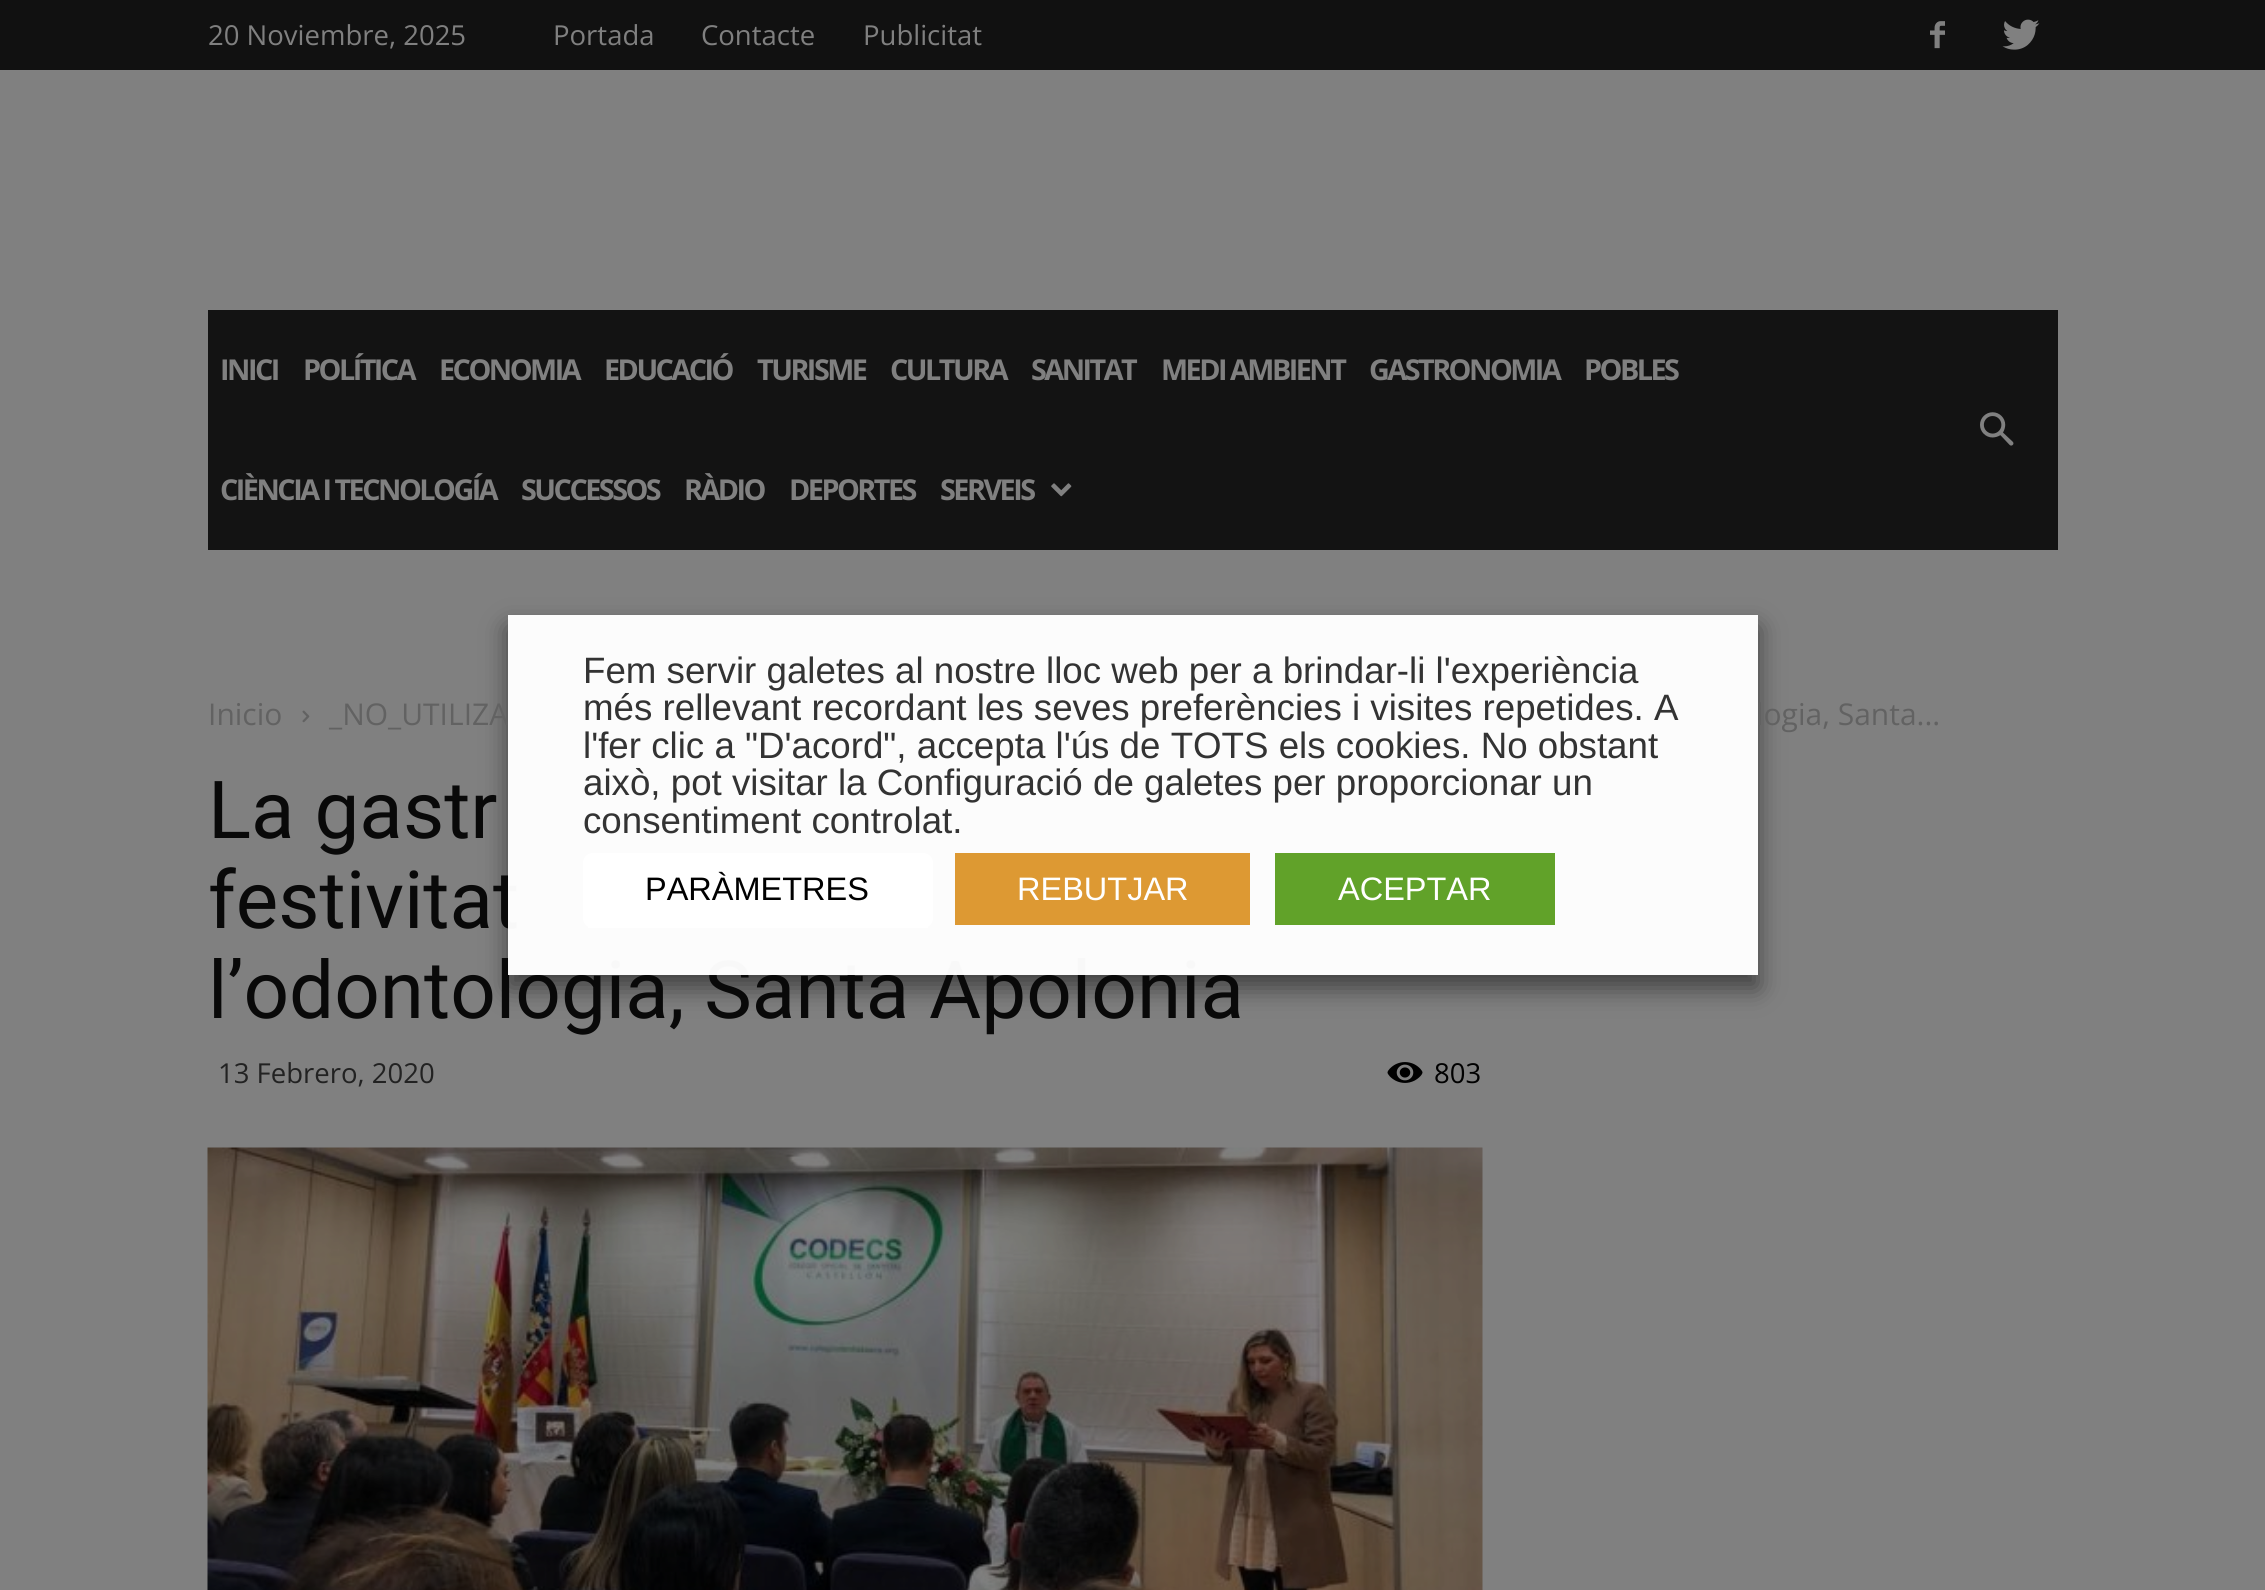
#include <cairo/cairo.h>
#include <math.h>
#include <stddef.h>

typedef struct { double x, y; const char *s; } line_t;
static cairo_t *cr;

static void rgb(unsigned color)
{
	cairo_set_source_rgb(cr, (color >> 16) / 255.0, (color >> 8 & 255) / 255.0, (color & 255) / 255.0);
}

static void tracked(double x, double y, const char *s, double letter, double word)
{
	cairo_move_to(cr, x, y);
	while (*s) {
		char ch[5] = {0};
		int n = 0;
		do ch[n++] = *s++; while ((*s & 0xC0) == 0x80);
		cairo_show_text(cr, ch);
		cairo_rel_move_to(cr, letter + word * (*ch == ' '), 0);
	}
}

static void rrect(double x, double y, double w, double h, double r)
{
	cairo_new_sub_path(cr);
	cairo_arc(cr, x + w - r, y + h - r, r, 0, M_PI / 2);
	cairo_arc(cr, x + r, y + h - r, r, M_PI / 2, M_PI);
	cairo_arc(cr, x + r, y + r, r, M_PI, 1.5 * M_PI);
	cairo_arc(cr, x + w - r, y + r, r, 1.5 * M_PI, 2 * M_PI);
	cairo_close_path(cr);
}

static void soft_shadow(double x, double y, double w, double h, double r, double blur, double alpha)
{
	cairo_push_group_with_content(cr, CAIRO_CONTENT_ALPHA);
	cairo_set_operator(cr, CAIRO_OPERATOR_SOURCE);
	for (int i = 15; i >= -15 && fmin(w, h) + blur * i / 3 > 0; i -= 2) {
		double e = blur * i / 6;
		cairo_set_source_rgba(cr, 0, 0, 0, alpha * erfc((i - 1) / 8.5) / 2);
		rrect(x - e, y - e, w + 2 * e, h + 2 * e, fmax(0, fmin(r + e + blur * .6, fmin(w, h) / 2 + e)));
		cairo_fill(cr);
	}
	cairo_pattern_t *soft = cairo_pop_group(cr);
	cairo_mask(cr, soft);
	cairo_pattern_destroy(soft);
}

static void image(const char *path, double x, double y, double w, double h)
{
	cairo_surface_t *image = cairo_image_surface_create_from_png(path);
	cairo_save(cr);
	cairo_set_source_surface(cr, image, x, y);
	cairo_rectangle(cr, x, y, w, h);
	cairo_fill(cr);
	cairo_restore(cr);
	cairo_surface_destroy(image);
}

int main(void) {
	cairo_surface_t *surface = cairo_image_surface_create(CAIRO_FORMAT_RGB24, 2265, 1590);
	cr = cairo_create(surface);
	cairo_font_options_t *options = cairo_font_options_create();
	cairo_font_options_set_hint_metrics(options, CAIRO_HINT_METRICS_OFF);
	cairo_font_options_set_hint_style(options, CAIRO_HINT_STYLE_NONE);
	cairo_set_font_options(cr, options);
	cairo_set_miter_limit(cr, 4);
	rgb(0x808080);
	cairo_paint(cr);
	rgb(0x111111);
	cairo_rectangle(cr, 0, 0, 2265, 70);
	cairo_fill(cr);
	image("img/1.png", 1930, 21, 15, 28);
	image("img/2.png", 2002, 19, 38, 31);
	rgb(0x131313);
	cairo_rectangle(cr, 208, 310, 1850, 240);
	cairo_fill(cr);
	image("img/3.png", 1051, 483, 21, 14);
	image("img/4.png", 1980, 412, 34, 34);
	image("img/5.png", 302, 710, 8, 13);
	image("img/5.png", 757, 710, 8, 13);
	image("img/6.png", 1387, 1062, 36, 21);
	image("img/7.png", 207, 1147, 1276, 443);
	cairo_save(cr);
	cairo_set_fill_rule(cr, CAIRO_FILL_RULE_EVEN_ODD);
	cairo_new_path(cr);
	cairo_move_to(cr, 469, 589);
	cairo_line_to(cr, 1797, 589);
	cairo_line_to(cr, 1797, 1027);
	cairo_line_to(cr, 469, 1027);
	cairo_close_path(cr);
	cairo_move_to(cr, 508, 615);
	cairo_line_to(cr, 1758, 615);
	cairo_line_to(cr, 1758, 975);
	cairo_line_to(cr, 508, 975);
	cairo_close_path(cr);
	cairo_clip(cr);
	rgb(0x000000);
	soft_shadow(508, 628, 1250, 360, 0, 12.5, 0.5);
	cairo_restore(cr);
	cairo_select_font_face(cr, "Open Sans", CAIRO_FONT_SLANT_NORMAL, CAIRO_FONT_WEIGHT_NORMAL);
	cairo_set_font_size(cr, 27.5);
	rgb(0x808080);
	{
		static const line_t items[] = {
			{208, 45, "20 Noviembre, 2025"},
			{553, 45, "Portada"},
			{701, 45, "Contacte"},
			{863, 45, "Publicitat"},
		};
		for (size_t i = 0; i < sizeof items / sizeof *items; i++) {
			cairo_move_to(cr, items[i].x, items[i].y);
			cairo_show_text(cr, items[i].s);
		}
	}
	cairo_select_font_face(cr, "Open Sans", CAIRO_FONT_SLANT_NORMAL, CAIRO_FONT_WEIGHT_BOLD);
	cairo_set_font_size(cr, 28.75);
	{
		static const line_t items[] = {
			{220, 380, "INICI"},
			{303, 380, "POLÍTICA"},
			{439, 380, "ECONOMIA"},
			{604, 380, "EDUCACIÓ"},
			{757, 380, "TURISME"},
			{890, 380, "CULTURA"},
			{1031, 380, "SANITAT"},
			{1161, 380, "MEDI AMBIENT"},
			{1369, 380, "GASTRONOMIA"},
			{1584, 380, "POBLES"},
			{220, 500, "CIÈNCIA I TECNOLOGÍA"},
			{521, 500, "SUCCESSOS"},
			{684, 500, "RÀDIO"},
			{789, 500, "DEPORTES"},
			{940, 500, "SERVEIS"},
		};
		for (size_t i = 0; i < sizeof items / sizeof *items; i++) {
			tracked(items[i].x, items[i].y, items[i].s, -2.5, 0);
		}
	}
	cairo_select_font_face(cr, "Open Sans", CAIRO_FONT_SLANT_NORMAL, CAIRO_FONT_WEIGHT_NORMAL);
	cairo_set_font_size(cr, 30);
	rgb(0x626262);
	{
		static const line_t items[] = {
			{208, 725, "Inicio"},
			{329, 725, "_NO_UTILIZA"},
			{1756, 725, "logia, Santa..."},
		};
		for (size_t i = 0; i < sizeof items / sizeof *items; i++) {
			cairo_move_to(cr, items[i].x, items[i].y);
			cairo_show_text(cr, items[i].s);
		}
	}
	cairo_select_font_face(cr, "Roboto", CAIRO_FONT_SLANT_NORMAL, CAIRO_FONT_WEIGHT_NORMAL);
	cairo_set_font_size(cr, 80);
	rgb(0x090909);
	{
		static const line_t items[] = {
			{208, 838, "La gastr"},
			{208, 928, "festivitat"},
			{208, 1018, "l’odontologia, Santa Apolonia"},
		};
		for (size_t i = 0; i < sizeof items / sizeof *items; i++) {
			cairo_move_to(cr, items[i].x, items[i].y);
			cairo_show_text(cr, items[i].s);
		}
	}
	cairo_select_font_face(cr, "Open Sans", CAIRO_FONT_SLANT_NORMAL, CAIRO_FONT_WEIGHT_NORMAL);
	cairo_set_font_size(cr, 27.5);
	rgb(0x222222);
	cairo_move_to(cr, 218, 1083);
	cairo_show_text(cr, "13 Febrero, 2020");
	rgb(0x000000);
	cairo_move_to(cr, 1434, 1083);
	cairo_show_text(cr, "803");
	cairo_set_source_rgba(cr, 1, 1, 1, 0.97);
	cairo_rectangle(cr, 508, 615, 1250, 360);
	cairo_fill(cr);
	cairo_select_font_face(cr, "Liberation Sans", CAIRO_FONT_SLANT_NORMAL, CAIRO_FONT_WEIGHT_NORMAL);
	cairo_set_font_size(cr, 36.7);
	rgb(0x333333);
	{
		static const line_t items[] = {
			{583, 683, "Fem servir galetes al nostre lloc web per a brindar-li l'experiència"},
			{583, 720, "més rellevant recordant les seves preferències i visites repetides. A"},
			{583, 758, "l'fer clic a \"D'acord\", accepta l'ús de TOTS els cookies. No obstant"},
			{583, 795, "això, pot visitar la Configuració de galetes per proporcionar un"},
			{583, 833, "consentiment controlat."},
		};
		for (size_t i = 0; i < sizeof items / sizeof *items; i++) {
			cairo_move_to(cr, items[i].x, items[i].y);
			cairo_show_text(cr, items[i].s);
		}
	}
	rgb(0xffffff);
	rrect(583, 853, 350, 75, 10);
	cairo_fill(cr);
	cairo_rectangle(cr, 588, 927, 340, 1);
	cairo_fill(cr);
	cairo_set_font_size(cr, 32.5);
	rgb(0x000000);
	cairo_move_to(cr, 645, 900);
	cairo_show_text(cr, "PARÀMETRES");
	rgb(0xdd9933);
	cairo_rectangle(cr, 955, 853, 295, 72);
	cairo_fill(cr);
	rgb(0xffffff);
	cairo_move_to(cr, 1017, 900);
	cairo_show_text(cr, "REBUTJAR");
	rgb(0x61a229);
	cairo_rectangle(cr, 1275, 853, 280, 72);
	cairo_fill(cr);
	rgb(0xffffff);
	cairo_move_to(cr, 1338, 900);
	cairo_show_text(cr, "ACEPTAR");
	cairo_surface_write_to_png(surface, "page.png");
	cairo_font_options_destroy(options);
	cairo_destroy(cr);
	cairo_surface_destroy(surface);
	return 0;
}
